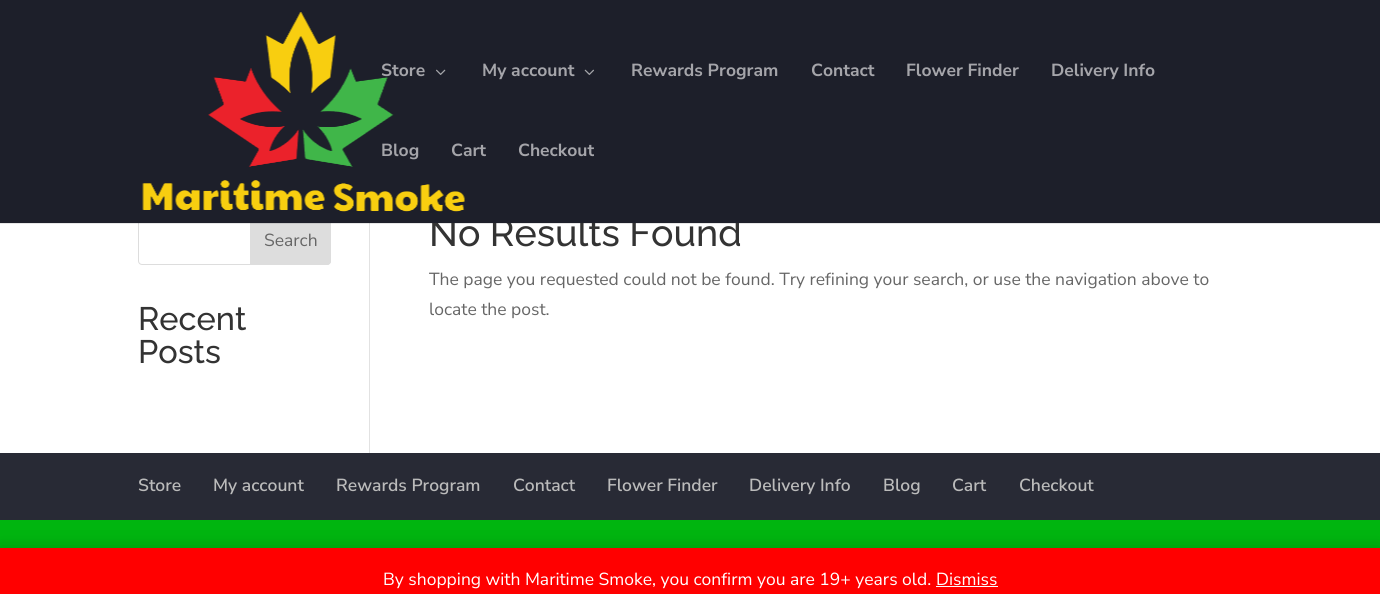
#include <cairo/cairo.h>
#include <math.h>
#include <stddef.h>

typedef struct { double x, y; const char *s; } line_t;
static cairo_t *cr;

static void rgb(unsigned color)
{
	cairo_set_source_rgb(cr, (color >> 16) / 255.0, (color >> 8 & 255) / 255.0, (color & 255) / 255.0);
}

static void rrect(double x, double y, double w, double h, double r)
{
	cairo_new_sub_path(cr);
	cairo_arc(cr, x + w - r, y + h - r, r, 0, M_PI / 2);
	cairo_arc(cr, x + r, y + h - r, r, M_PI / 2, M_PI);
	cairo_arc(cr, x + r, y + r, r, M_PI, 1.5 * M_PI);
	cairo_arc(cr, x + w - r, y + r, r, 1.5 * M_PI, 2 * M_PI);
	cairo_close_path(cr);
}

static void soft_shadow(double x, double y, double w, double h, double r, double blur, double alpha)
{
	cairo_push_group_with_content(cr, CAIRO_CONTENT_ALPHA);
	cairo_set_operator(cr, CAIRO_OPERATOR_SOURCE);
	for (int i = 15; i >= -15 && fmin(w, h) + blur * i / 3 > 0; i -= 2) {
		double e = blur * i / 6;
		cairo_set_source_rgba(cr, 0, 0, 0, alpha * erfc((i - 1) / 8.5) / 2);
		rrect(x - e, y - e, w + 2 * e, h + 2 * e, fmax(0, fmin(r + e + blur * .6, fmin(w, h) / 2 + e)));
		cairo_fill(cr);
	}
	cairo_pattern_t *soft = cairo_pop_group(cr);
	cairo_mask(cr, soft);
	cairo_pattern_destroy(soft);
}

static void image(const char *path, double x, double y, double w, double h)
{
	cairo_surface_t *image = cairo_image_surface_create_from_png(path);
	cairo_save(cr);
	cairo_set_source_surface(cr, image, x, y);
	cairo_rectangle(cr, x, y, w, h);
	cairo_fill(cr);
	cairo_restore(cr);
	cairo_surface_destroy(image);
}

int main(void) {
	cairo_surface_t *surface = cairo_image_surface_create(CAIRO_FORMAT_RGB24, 1380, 594);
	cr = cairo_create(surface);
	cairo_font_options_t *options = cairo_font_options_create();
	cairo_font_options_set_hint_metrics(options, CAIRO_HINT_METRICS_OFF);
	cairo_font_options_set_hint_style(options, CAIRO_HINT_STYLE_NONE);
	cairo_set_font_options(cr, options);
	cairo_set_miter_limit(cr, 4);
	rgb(0xffffff);
	cairo_paint(cr);
	rrect(138.5, 215.5, 192, 49, 3.5);
	rgb(0xdddddd);
	cairo_set_line_width(cr, 1);
	cairo_stroke(cr);
	cairo_new_path(cr);
	cairo_move_to(cr, 250.5, 215.5);
	cairo_line_to(cr, 327, 215.5);
	cairo_curve_to(cr, 329, 215.5, 330.5, 217, 330.5, 219);
	cairo_line_to(cr, 330.5, 261);
	cairo_curve_to(cr, 330.5, 263, 329, 264.5, 327, 264.5);
	cairo_line_to(cr, 250.5, 264.5);
	cairo_close_path(cr);
	cairo_fill_preserve(cr);
	cairo_stroke(cr);
	rgb(0xe2e2e2);
	cairo_rectangle(cr, 369, 223, 1, 230);
	cairo_fill(cr);
	cairo_set_source_rgba(cr, 0, 0, 0, 0.1);
	cairo_rectangle(cr, 0, 223, 1380, 1);
	cairo_fill(cr);
	rgb(0x282a35);
	cairo_rectangle(cr, 0, 453, 1380, 67);
	cairo_fill(cr);
	rgb(0x00b50f);
	cairo_rectangle(cr, 0, 520, 1380, 28);
	cairo_fill(cr);
	rgb(0x000000);
	soft_shadow(0, 549, 1380, 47, 0, 9, 0.2);
	rgb(0xff0000);
	cairo_rectangle(cr, 0, 548, 1380, 46);
	cairo_fill(cr);
	rgb(0xfcfbfe);
	cairo_rectangle(cr, 936, 586, 62, 1);
	cairo_fill(cr);
	cairo_select_font_face(cr, "Nunito Sans ExtraLight", CAIRO_FONT_SLANT_NORMAL, CAIRO_FONT_WEIGHT_NORMAL);
	cairo_set_font_size(cr, 17.5);
	rgb(0x666666);
	cairo_move_to(cr, 264, 246);
	cairo_show_text(cr, "Search");
	cairo_select_font_face(cr, "Raleway Thin", CAIRO_FONT_SLANT_NORMAL, CAIRO_FONT_WEIGHT_NORMAL);
	cairo_set_font_size(cr, 32.5);
	rgb(0x333333);
	cairo_move_to(cr, 138, 330);
	cairo_show_text(cr, "Recent");
	cairo_move_to(cr, 138, 363);
	cairo_show_text(cr, "Posts");
	cairo_set_font_size(cr, 37.5);
	cairo_move_to(cr, 429, 246);
	cairo_show_text(cr, "No Results Found");
	rgb(0x1d1f2a);
	cairo_rectangle(cr, 0, 0, 1380, 223);
	cairo_fill(cr);
	cairo_select_font_face(cr, "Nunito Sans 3 ExtraLight", CAIRO_FONT_SLANT_NORMAL, CAIRO_FONT_WEIGHT_NORMAL);
	cairo_set_font_size(cr, 17.5);
	rgb(0xa5a5aa);
	cairo_move_to(cr, 518, 156);
	cairo_show_text(cr, "Checkout");
	image("img/1.png", 142, 12, 323, 200);
	{
		static const line_t items[] = {
			{451, 156, "Cart"},
			{381, 156, "Blog"},
			{1051, 76, "Delivery Info"},
			{906, 76, "Flower Finder"},
			{811, 76, "Contact"},
			{631, 76, "Rewards Program"},
		};
		for (size_t i = 0; i < sizeof items / sizeof *items; i++) {
			cairo_move_to(cr, items[i].x, items[i].y);
			cairo_show_text(cr, items[i].s);
		}
	}
	image("img/3.png", 584, 69, 10, 6);
	cairo_move_to(cr, 482, 76);
	cairo_show_text(cr, "My account");
	image("img/2.png", 436, 69, 10, 6);
	cairo_move_to(cr, 381, 76);
	cairo_show_text(cr, "Store");
	cairo_select_font_face(cr, "Nunito Sans ExtraLight", CAIRO_FONT_SLANT_NORMAL, CAIRO_FONT_WEIGHT_NORMAL);
	rgb(0x666666);
	cairo_move_to(cr, 429, 285);
	cairo_show_text(cr, "The page you requested could not be found. Try refining your search, or use the navigation above to");
	cairo_move_to(cr, 429, 315);
	cairo_show_text(cr, "locate the post.");
	cairo_select_font_face(cr, "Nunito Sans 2 ExtraLight", CAIRO_FONT_SLANT_NORMAL, CAIRO_FONT_WEIGHT_NORMAL);
	rgb(0xbbbbbb);
	{
		static const line_t items[] = {
			{138, 491, "Store"},
			{213, 491, "My account"},
			{336, 491, "Rewards Program"},
			{513, 491, "Contact"},
			{607, 491, "Flower Finder"},
			{749, 491, "Delivery Info"},
			{883, 491, "Blog"},
			{952, 491, "Cart"},
			{1019, 491, "Checkout"},
		};
		for (size_t i = 0; i < sizeof items / sizeof *items; i++) {
			cairo_move_to(cr, items[i].x, items[i].y);
			cairo_show_text(cr, items[i].s);
		}
	}
	cairo_select_font_face(cr, "Nunito Sans ExtraLight", CAIRO_FONT_SLANT_NORMAL, CAIRO_FONT_WEIGHT_NORMAL);
	rgb(0xffffff);
	cairo_move_to(cr, 383, 585);
	cairo_show_text(cr, "By shopping with Maritime Smoke, you confirm you are 19+ years old.");
	cairo_move_to(cr, 936, 585);
	cairo_show_text(cr, "Dismiss");
	cairo_surface_write_to_png(surface, "page.png");
	cairo_font_options_destroy(options);
	cairo_destroy(cr);
	cairo_surface_destroy(surface);
	return 0;
}
